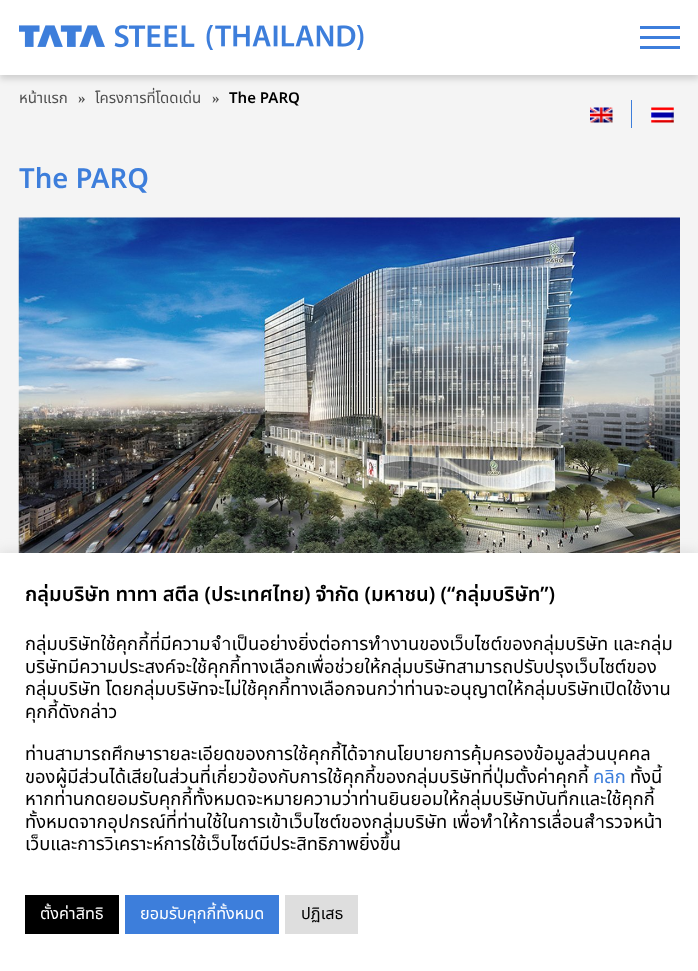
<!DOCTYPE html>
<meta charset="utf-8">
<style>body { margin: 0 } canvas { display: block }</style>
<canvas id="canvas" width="698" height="971"></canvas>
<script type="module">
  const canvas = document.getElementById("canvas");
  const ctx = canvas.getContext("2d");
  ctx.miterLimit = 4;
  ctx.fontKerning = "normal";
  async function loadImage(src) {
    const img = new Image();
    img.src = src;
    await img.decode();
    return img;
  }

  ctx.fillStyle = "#f4f4f4";
  ctx.fillRect(0, 0, 698, 971);
  ctx.fillStyle = "rgba(0, 0, 0, 0.15)";
  ctx.filter = "blur(3px)";
  ctx.beginPath();
  ctx.rect(0, 4, 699, 75);
  ctx.fill();
  ctx.filter = "none";
  ctx.fillStyle = "#ffffff";
  ctx.fillRect(0, 0, 698, 75);
  ctx.drawImage(await loadImage("img1.png"), 19, 25, 345, 25);
  ctx.fillStyle = "#3d7edb";
  ctx.fillRect(640, 36, 40, 3);
  ctx.fillRect(640, 26, 40, 3);
  ctx.fillRect(640, 46, 40, 3);
  ctx.font = "15px Noto Sans Thai";
  ctx.fillStyle = "#4f4f4f";
  ctx.fillText("หน้าแรก", 19, 103);
  ctx.font = "bold 15px Liberation Serif";
  ctx.fillText("»", 78, 103);
  ctx.font = "15px Noto Sans Thai";
  ctx.fillText("โครงการที่โดดเด่น", 95, 103);
  ctx.font = "bold 15px Liberation Serif";
  ctx.fillText("»", 212, 103);
  ctx.font = "600 15px Noto Sans Thai";
  ctx.fillStyle = "#000000";
  ctx.fillText("The PARQ", 229, 103);
  ctx.font = "600 27.5px Noto Sans Thai";
  ctx.fillStyle = "#3d7edb";
  ctx.fillText("The PARQ", 19, 188);
  ctx.drawImage(await loadImage("img2.png"), 18, 217, 662, 336);
  ctx.fillRect(631, 100, 1, 28);
  ctx.drawImage(await loadImage("img3.png"), 590, 107, 23, 16);
  ctx.drawImage(await loadImage("img4.png"), 651, 107, 23, 16);
  ctx.fillStyle = "rgba(172, 171, 171, 0.3)";
  ctx.filter = "blur(6px)";
  ctx.beginPath();
  ctx.rect(0, 551, 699, 419);
  ctx.fill();
  ctx.filter = "none";
  ctx.fillStyle = "#ffffff";
  ctx.fillRect(0, 553, 698, 418);
  ctx.font = "600 20px Noto Sans Thai";
  ctx.fillStyle = "#000000";
  ctx.fillText("กลุ่มบริษัท ทาทา สตีล (ประเทศไทย) จำกัด (มหาชน) (“กลุ่มบริษัท”)", 25, 601);
  ctx.font = "18.35px Noto Sans Thai";
  ctx.fillText("กลุ่มบริษัทใช้คุกกี้ที่มีความจำเป็นอย่างยิ่งต่อการทำงานของเว็บไซต์ของกลุ่มบริษัท และกลุ่ม", 25, 650);
  ctx.fillText("บริษัทมีความประสงค์จะใช้คุกกี้ทางเลือกเพื่อช่วยให้กลุ่มบริษัทสามารถปรับปรุงเว็บไซต์ของ", 25, 673);
  ctx.fillText("กลุ่มบริษัท โดยกลุ่มบริษัทจะไม่ใช้คุกกี้ทางเลือกจนกว่าท่านจะอนุญาตให้กลุ่มบริษัทเปิดใช้งาน", 25, 695);
  ctx.fillText("คุกกี้ดังกล่าว", 25, 718);
  ctx.fillText("ท่านสามารถศึกษารายละเอียดของการใช้คุกกี้ได้จากนโยบายการคุ้มครองข้อมูลส่วนบุคคล", 25, 760);
  ctx.fillText("ของผู้มีส่วนได้เสียในส่วนที่เกี่ยวข้องกับการใช้คุกกี้ของกลุ่มบริษัทที่ปุ่มตั้งค่าคุกกี้", 25, 783);
  ctx.fillStyle = "#3d7edb";
  ctx.fillText("คลิก", 593, 783);
  ctx.fillStyle = "#000000";
  ctx.fillText("ทั้งนี้", 630, 783);
  ctx.fillText("หากท่านกดยอมรับคุกกี้ทั้งหมดจะหมายความว่าท่านยินยอมให้กลุ่มบริษัทบันทึกและใช้คุกกี้", 25, 805);
  ctx.fillText("ทั้งหมดจากอุปกรณ์ที่ท่านใช้ในการเข้าเว็บไซต์ของกลุ่มบริษัท เพื่อทำให้การเลื่อนสำรวจหน้า", 25, 828);
  ctx.fillText("เว็บและการวิเคราะห์การใช้เว็บไซต์มีประสิทธิภาพยิ่งขึ้น", 25, 850);
  ctx.fillRect(25, 895, 94, 39);
  ctx.font = "16.25px Noto Sans Thai";
  ctx.fillStyle = "#ffffff";
  ctx.fillText("ตั้งค่าสิทธิ", 40, 919);
  ctx.fillStyle = "#3d7edb";
  ctx.fillRect(125, 895, 154, 39);
  ctx.fillStyle = "#ffffff";
  ctx.fillText("ยอมรับคุกกี้ทั้งหมด", 140, 919);
  ctx.fillStyle = "#dedede";
  ctx.fillRect(285, 895, 73, 39);
  ctx.fillStyle = "#000000";
  ctx.fillText("ปฏิเสธ", 301, 919);
</script>
